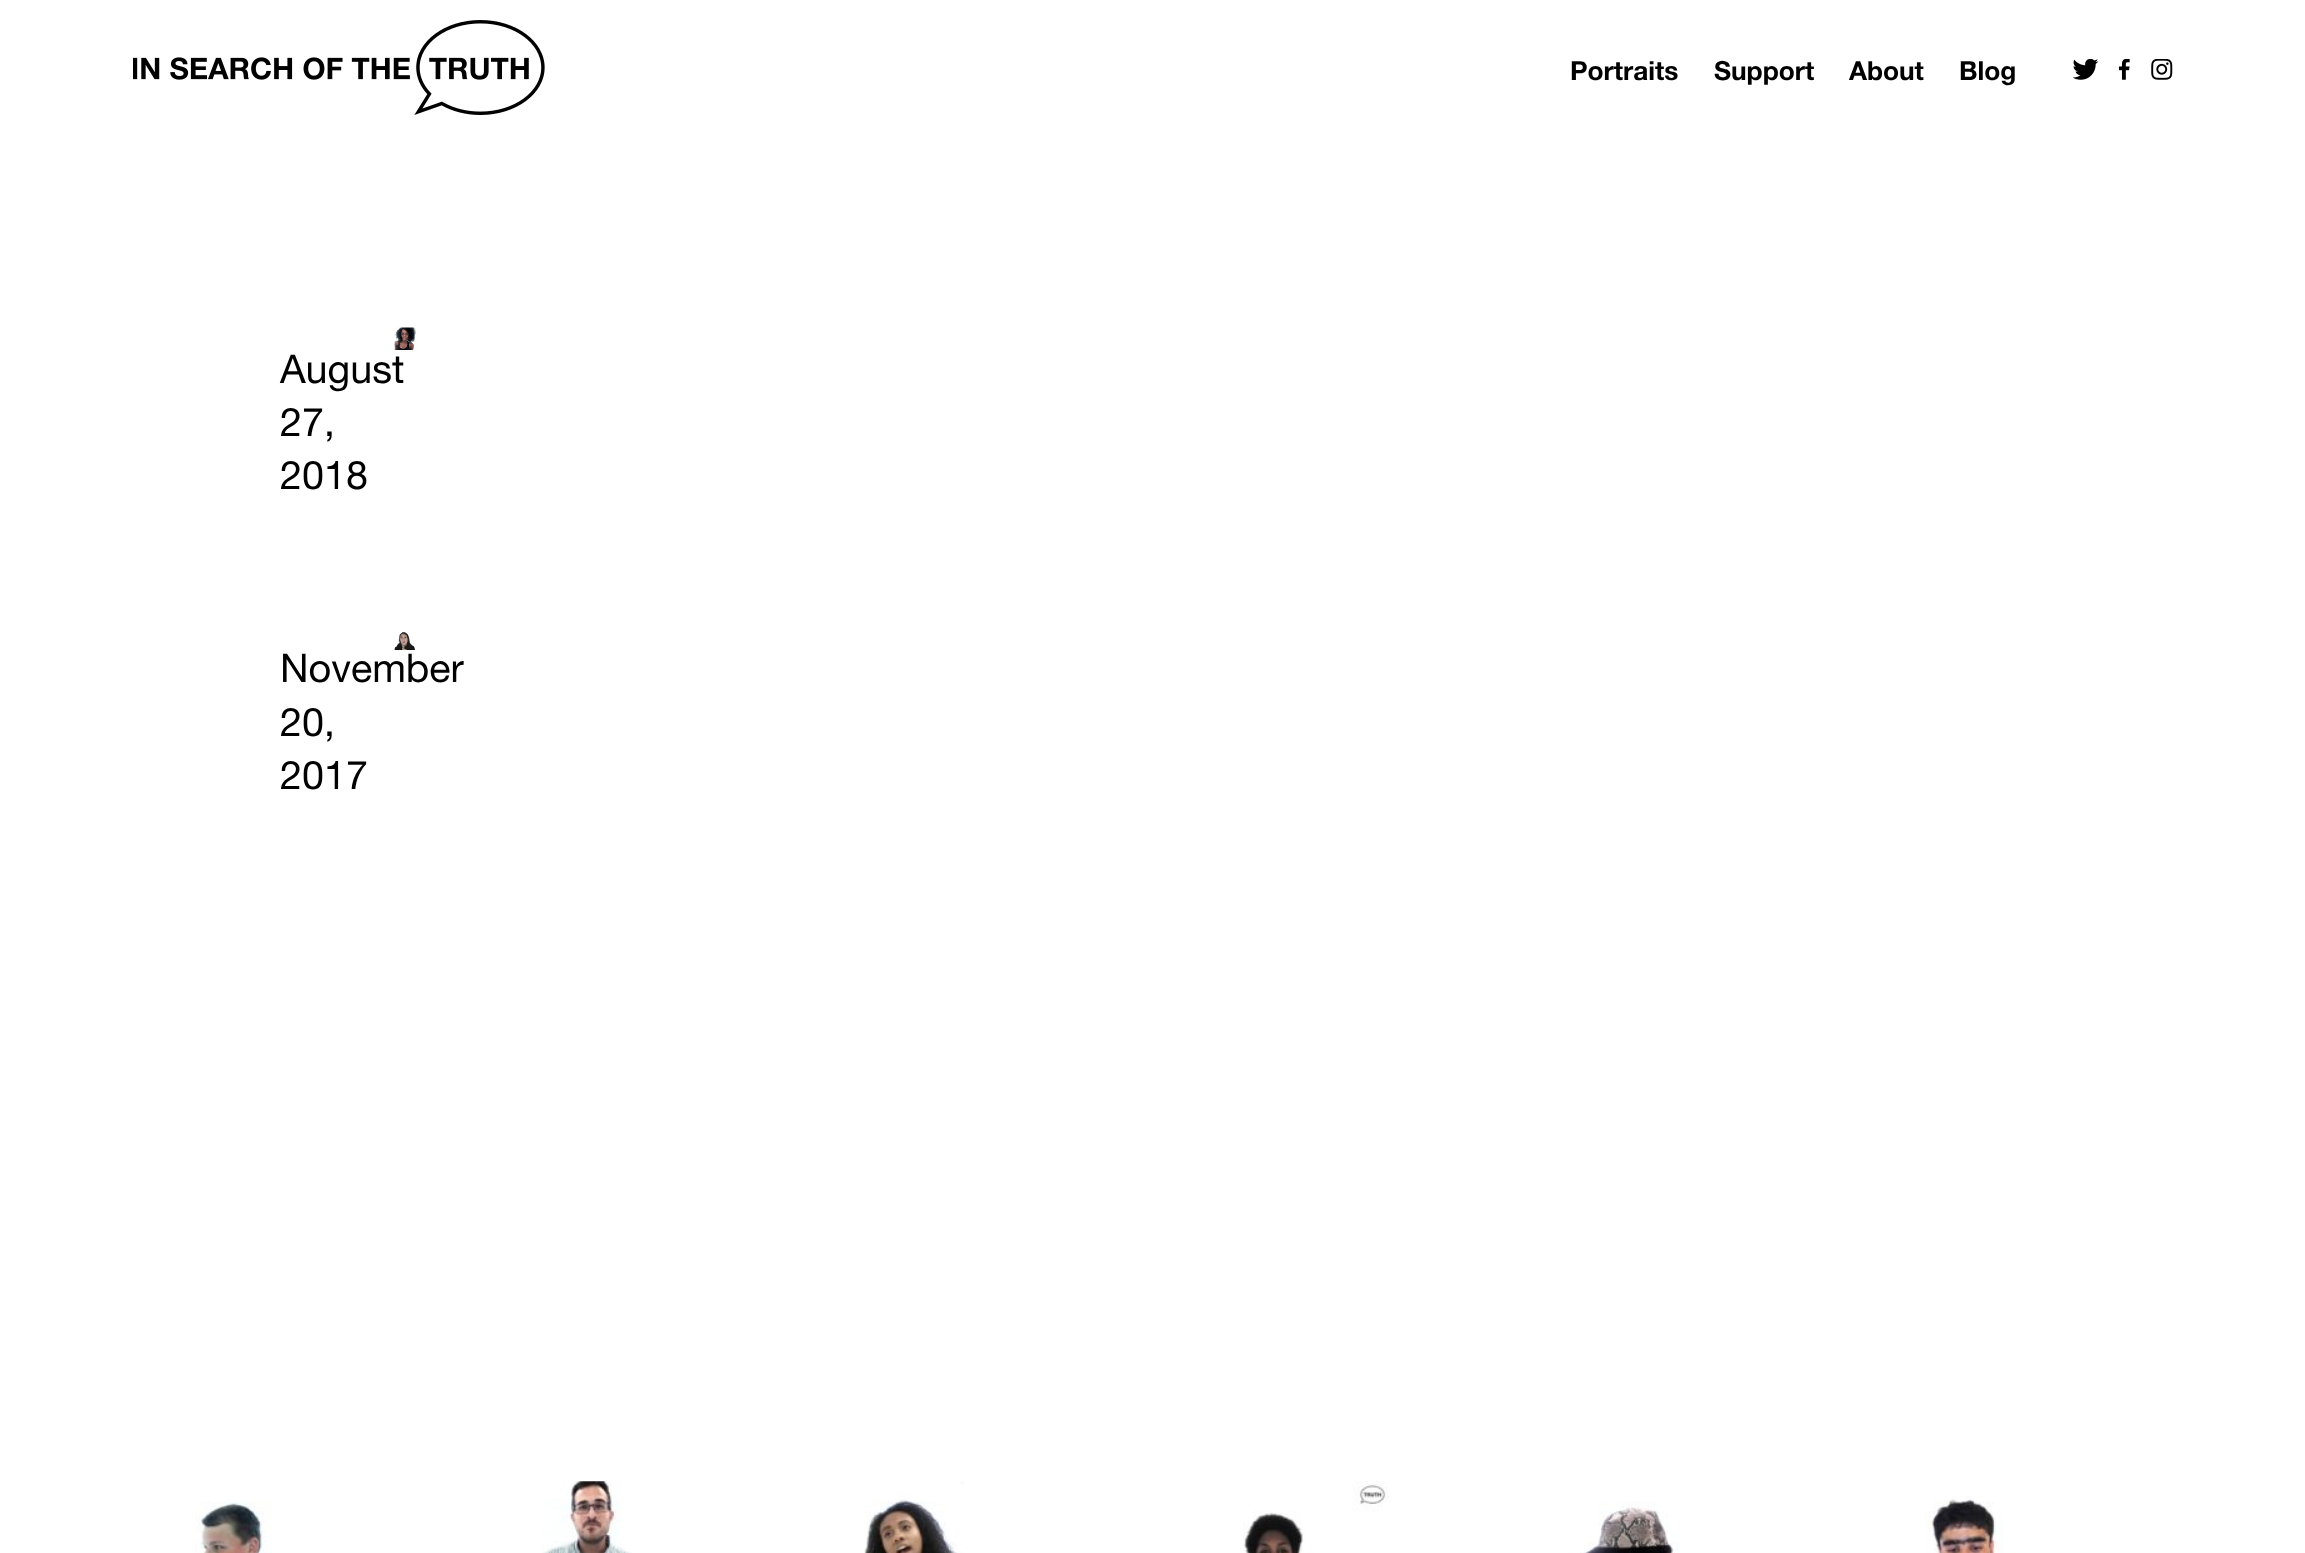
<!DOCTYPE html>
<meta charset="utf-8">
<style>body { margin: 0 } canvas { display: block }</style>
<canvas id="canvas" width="2305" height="1553"></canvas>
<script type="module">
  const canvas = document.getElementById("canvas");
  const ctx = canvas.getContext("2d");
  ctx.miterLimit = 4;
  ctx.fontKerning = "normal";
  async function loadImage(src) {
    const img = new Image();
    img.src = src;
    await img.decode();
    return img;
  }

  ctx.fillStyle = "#ffffff";
  ctx.fillRect(0, 0, 2305, 1553);
  ctx.drawImage(await loadImage("img1.png"), 133, 20, 412, 95);
  ctx.font = "bold 26.25px Helvetica Neue";
  ctx.fillStyle = "#000000";
  ctx.fillText("Portraits", 1570, 80);
  ctx.fillText("Support", 1714, 80);
  ctx.fillText("About", 1849, 80);
  ctx.fillText("Blog", 1959, 80);
  ctx.drawImage(await loadImage("img2.png"), 2073, 59, 26, 21);
  ctx.drawImage(await loadImage("img3.png"), 2119, 59, 11, 21);
  ctx.drawImage(await loadImage("img4.png"), 2151, 59, 22, 21);
  ctx.drawImage(await loadImage("img5.png"), 394, 327, 23, 23);
  ctx.font = "39.5px Helvetica Neue";
  ctx.fillText("August", 280, 383);
  ctx.fillText("27,", 280, 436);
  ctx.fillText("2018", 280, 489);
  ctx.drawImage(await loadImage("img6.png"), 394, 632, 22, 18);
  ctx.fillText("November", 280, 682);
  ctx.fillText("20,", 280, 736);
  ctx.fillText("2017", 280, 789);
  ctx.drawImage(await loadImage("img7.png"), 195, 1501, 76, 52);
  ctx.drawImage(await loadImage("img8.png"), 542, 1481, 90, 72);
  ctx.drawImage(await loadImage("img9.png"), 864, 1481, 100, 72);
  ctx.drawImage(await loadImage("img10.png"), 1243, 1481, 146, 72);
  ctx.drawImage(await loadImage("img11.png"), 1580, 1501, 99, 52);
  ctx.drawImage(await loadImage("img12.png"), 1924, 1496, 80, 57);
</script>
